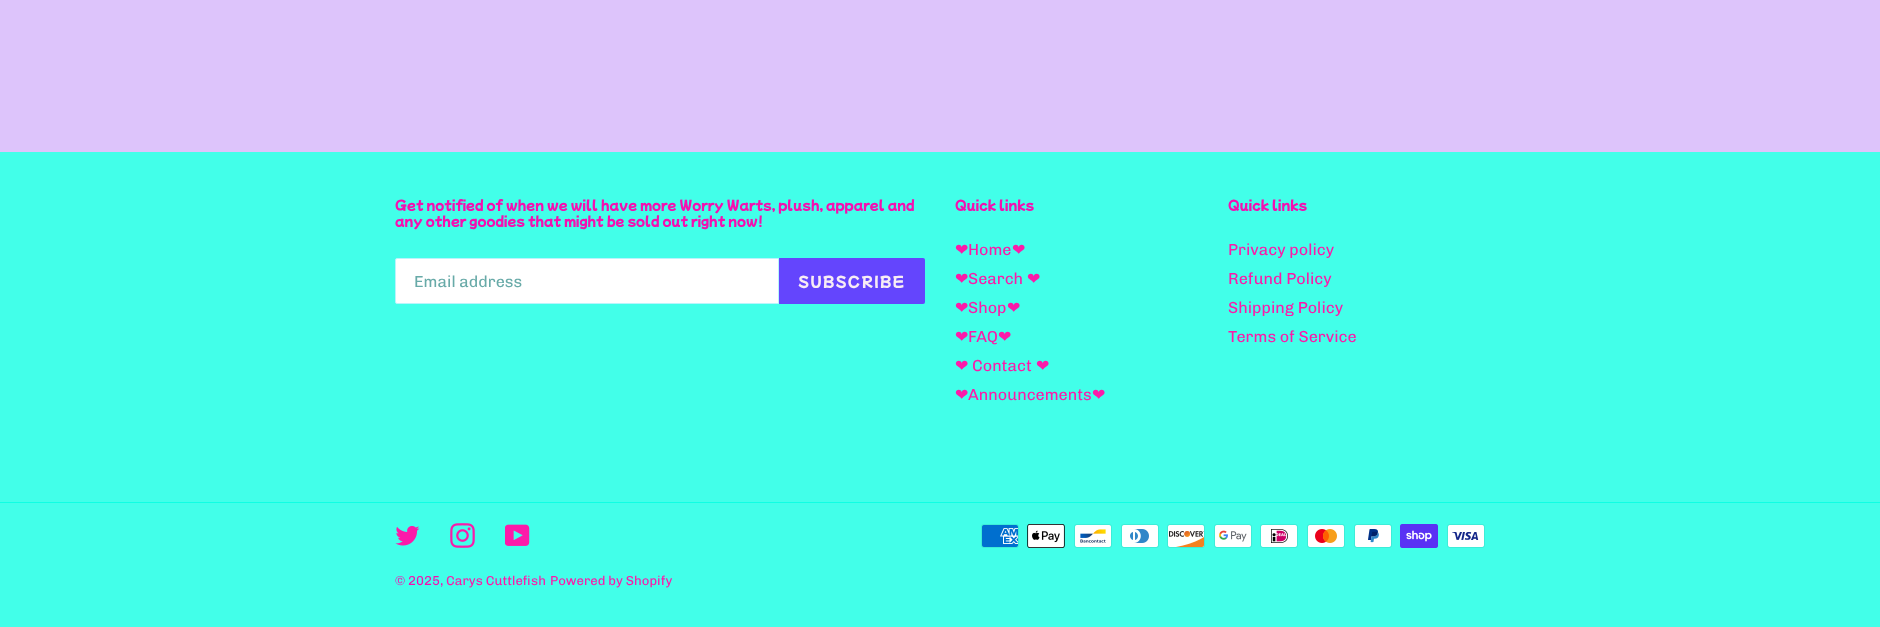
<!DOCTYPE html>
<meta charset="utf-8">
<style>body { margin: 0 } canvas { display: block }</style>
<canvas id="canvas" width="1880" height="627"></canvas>
<script type="module">
  const canvas = document.getElementById("canvas");
  const ctx = canvas.getContext("2d");
  ctx.miterLimit = 4;
  ctx.fontKerning = "normal";
  async function loadImage(src) {
    const img = new Image();
    img.src = src;
    await img.decode();
    return img;
  }

  ctx.fillStyle = "#ddc4fb";
  ctx.fillRect(0, 0, 1880, 627);
  ctx.fillStyle = "#42ffe9";
  ctx.fillRect(0, 152, 1880, 475);
  ctx.font = "13px Mochiy Pop P One";
  ctx.fillStyle = "#f50fb0";
  ctx.fillText("Get notified of when we will have more Worry Warts, plush, apparel and", 395, 210);
  ctx.fillText("any other goodies that might be sold out right now!", 395, 226);
  ctx.fillStyle = "#ffffff";
  ctx.beginPath();
  ctx.roundRect(395.5, 258.5, 383, 45, [1.5, 0, 0, 1.5]);
  ctx.fill();
  ctx.strokeStyle = "#b9f4fc";
  ctx.stroke();
  ctx.font = "16px Chivo";
  ctx.fillStyle = "#68aaa8";
  ctx.fillText("Email address", 414, 287);
  ctx.fillStyle = "#6445fd";
  ctx.beginPath();
  ctx.roundRect(779, 258, 146, 46, [0, 2, 2, 0]);
  ctx.fill();
  ctx.letterSpacing = "1.1px";
  ctx.font = "14px Mochiy Pop P One";
  ctx.fillStyle = "#f7ecf5";
  ctx.fillText("SUBSCRIBE", 798, 287);
  ctx.letterSpacing = "0px";
  ctx.font = "13px Mochiy Pop P One";
  ctx.fillStyle = "#f50fb0";
  ctx.fillText("Quick links", 955, 210);
  ctx.font = "16px DejaVu Sans";
  ctx.fillStyle = "#fc1aa9";
  ctx.fillText("❤", 955, 255);
  ctx.font = "16px Chivo";
  ctx.fillText("Home", 968, 255);
  ctx.font = "16px DejaVu Sans";
  ctx.fillText("❤", 1012, 255);
  ctx.fillText("❤", 955, 284);
  ctx.font = "16px Chivo";
  ctx.fillText("Search", 968, 284);
  ctx.font = "16px DejaVu Sans";
  ctx.fillText("❤", 1027, 284);
  ctx.fillText("❤", 955, 313);
  ctx.font = "16px Chivo";
  ctx.fillText("Shop", 968, 313);
  ctx.font = "16px DejaVu Sans";
  ctx.fillText("❤", 1007, 313);
  ctx.fillText("❤", 955, 342);
  ctx.font = "16px Chivo";
  ctx.fillText("FAQ", 968, 342);
  ctx.font = "16px DejaVu Sans";
  ctx.fillText("❤", 998, 342);
  ctx.fillText("❤", 955, 371);
  ctx.font = "16px Chivo";
  ctx.fillText("Contact", 972, 371);
  ctx.font = "16px DejaVu Sans";
  ctx.fillText("❤", 1036, 371);
  ctx.fillText("❤", 955, 400);
  ctx.font = "16px Chivo";
  ctx.fillText("Announcements", 968, 400);
  ctx.font = "16px DejaVu Sans";
  ctx.fillText("❤", 1092, 400);
  ctx.font = "13px Mochiy Pop P One";
  ctx.fillStyle = "#f50fb0";
  ctx.fillText("Quick links", 1228, 210);
  ctx.font = "16px Chivo";
  ctx.fillStyle = "#fc1aa9";
  ctx.fillText("Privacy policy", 1228, 255);
  ctx.fillText("Refund Policy", 1228, 284);
  ctx.fillText("Shipping Policy", 1228, 313);
  ctx.fillText("Terms of Service", 1228, 342);
  ctx.fillStyle = "#0fffe3";
  ctx.fillRect(0, 502, 1880, 1);
  ctx.drawImage(await loadImage("img1.png"), 395, 526, 25, 20);
  ctx.drawImage(await loadImage("img2.png"), 450, 523, 25, 25);
  ctx.drawImage(await loadImage("img3.png"), 505, 524, 25, 22);
  ctx.drawImage(await loadImage("img4.png"), 981, 524, 38, 24);
  ctx.drawImage(await loadImage("img5.png"), 1027, 524, 38, 24);
  ctx.drawImage(await loadImage("img6.png"), 1074, 524, 38, 24);
  ctx.drawImage(await loadImage("img7.png"), 1121, 524, 38, 24);
  ctx.drawImage(await loadImage("img8.png"), 1167, 524, 38, 24);
  ctx.drawImage(await loadImage("img9.png"), 1214, 524, 38, 24);
  ctx.drawImage(await loadImage("img10.png"), 1260, 524, 38, 24);
  ctx.drawImage(await loadImage("img11.png"), 1307, 524, 38, 24);
  ctx.drawImage(await loadImage("img12.png"), 1354, 524, 38, 24);
  ctx.drawImage(await loadImage("img13.png"), 1400, 524, 38, 24);
  ctx.drawImage(await loadImage("img14.png"), 1447, 524, 38, 24);
  ctx.font = "13px Chivo";
  ctx.fillStyle = "#f50fb0";
  ctx.fillText("© 2025,", 395, 585);
  ctx.fillStyle = "#fc1aa9";
  ctx.fillText("Carys Cuttlefish", 446, 585);
  ctx.fillText("Powered by Shopify", 550, 585);
</script>
